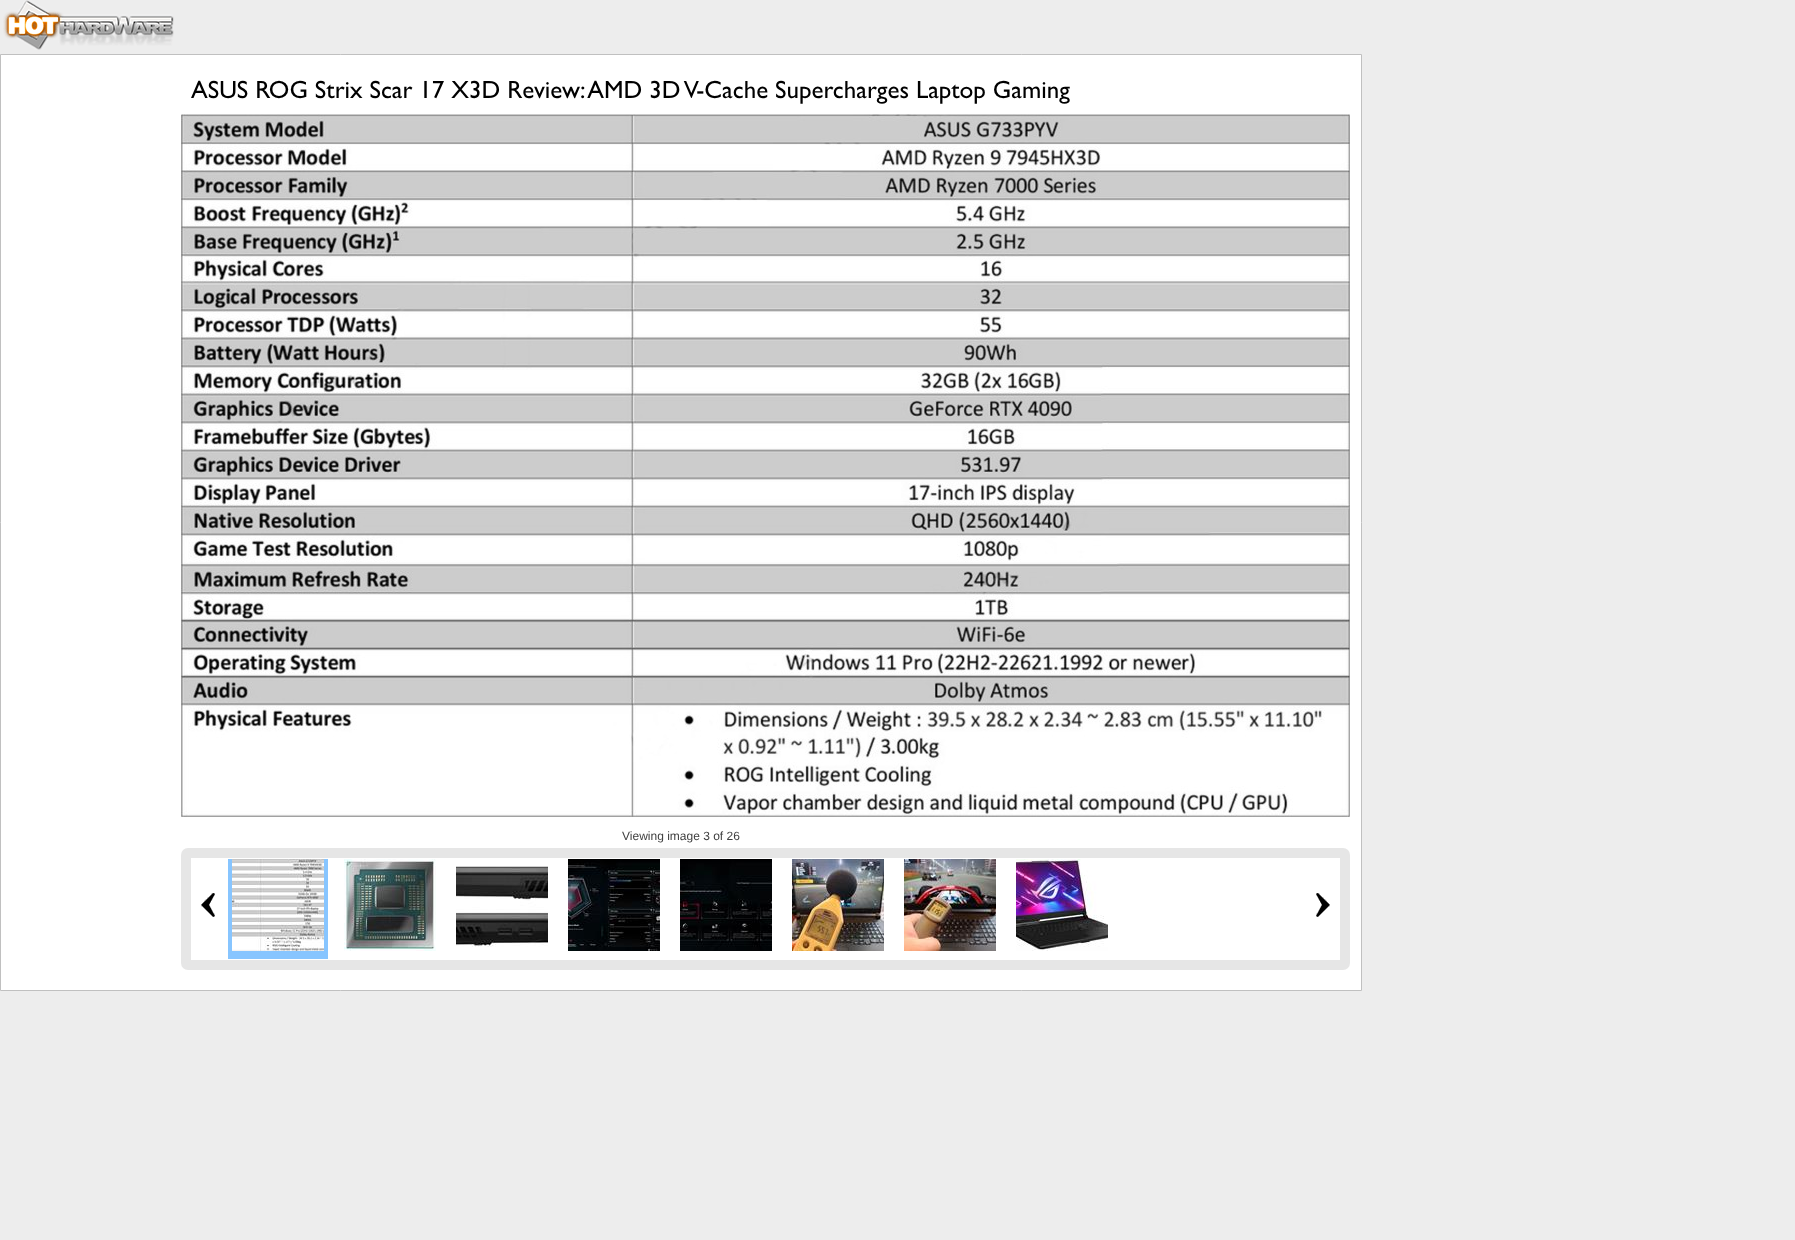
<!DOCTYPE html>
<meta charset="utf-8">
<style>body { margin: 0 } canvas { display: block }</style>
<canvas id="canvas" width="1795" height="1240"></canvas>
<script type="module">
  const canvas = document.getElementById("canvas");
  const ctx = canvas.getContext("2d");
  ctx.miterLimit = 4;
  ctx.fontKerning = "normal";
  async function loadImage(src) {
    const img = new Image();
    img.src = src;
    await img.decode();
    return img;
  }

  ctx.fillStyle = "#ededed";
  ctx.fillRect(0, 0, 1795, 1240);
  ctx.drawImage(await loadImage("img1.png"), 3, 0, 171, 50);
  ctx.fillStyle = "#ffffff";
  ctx.beginPath();
  ctx.rect(0.5, 54.5, 1361, 936);
  ctx.fill();
  ctx.strokeStyle = "#c0c0c0";
  ctx.stroke();
  ctx.font = "25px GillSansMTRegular";
  ctx.fillStyle = "#000000";
  ctx.fillText("ASUS ROG Strix Scar 17 X3D Review: AMD 3D V-Cache Supercharges Laptop Gaming", 191, 98);
  ctx.drawImage(await loadImage("img2.png"), 181, 114, 1169, 703);
  ctx.font = "12px Liberation Sans";
  ctx.fillStyle = "#3f3f3f";
  ctx.fillText("Viewing image 3 of 26", 622, 840);
  ctx.fillStyle = "#e6e6e6";
  ctx.beginPath();
  ctx.roundRect(181, 848, 1169, 122, 7);
  ctx.fill();
  ctx.fillStyle = "#ffffff";
  ctx.fillRect(191, 858, 1149, 102);
  ctx.drawImage(await loadImage("img3.png"), 201, 893, 14, 24);
  ctx.fillStyle = "#87c5ff";
  ctx.fillRect(228, 859, 100, 100);
  ctx.drawImage(await loadImage("img4.png"), 232, 859, 92, 92);
  ctx.drawImage(await loadImage("img5.png"), 344, 859, 92, 92);
  ctx.drawImage(await loadImage("img6.png"), 456, 866, 92, 81);
  ctx.drawImage(await loadImage("img7.png"), 568, 859, 92, 92);
  ctx.drawImage(await loadImage("img8.png"), 680, 859, 92, 92);
  ctx.drawImage(await loadImage("img9.png"), 792, 859, 92, 92);
  ctx.drawImage(await loadImage("img10.png"), 904, 859, 92, 92);
  ctx.drawImage(await loadImage("img11.png"), 1016, 859, 92, 92);
  ctx.drawImage(await loadImage("img12.png"), 1316, 893, 14, 24);
</script>
